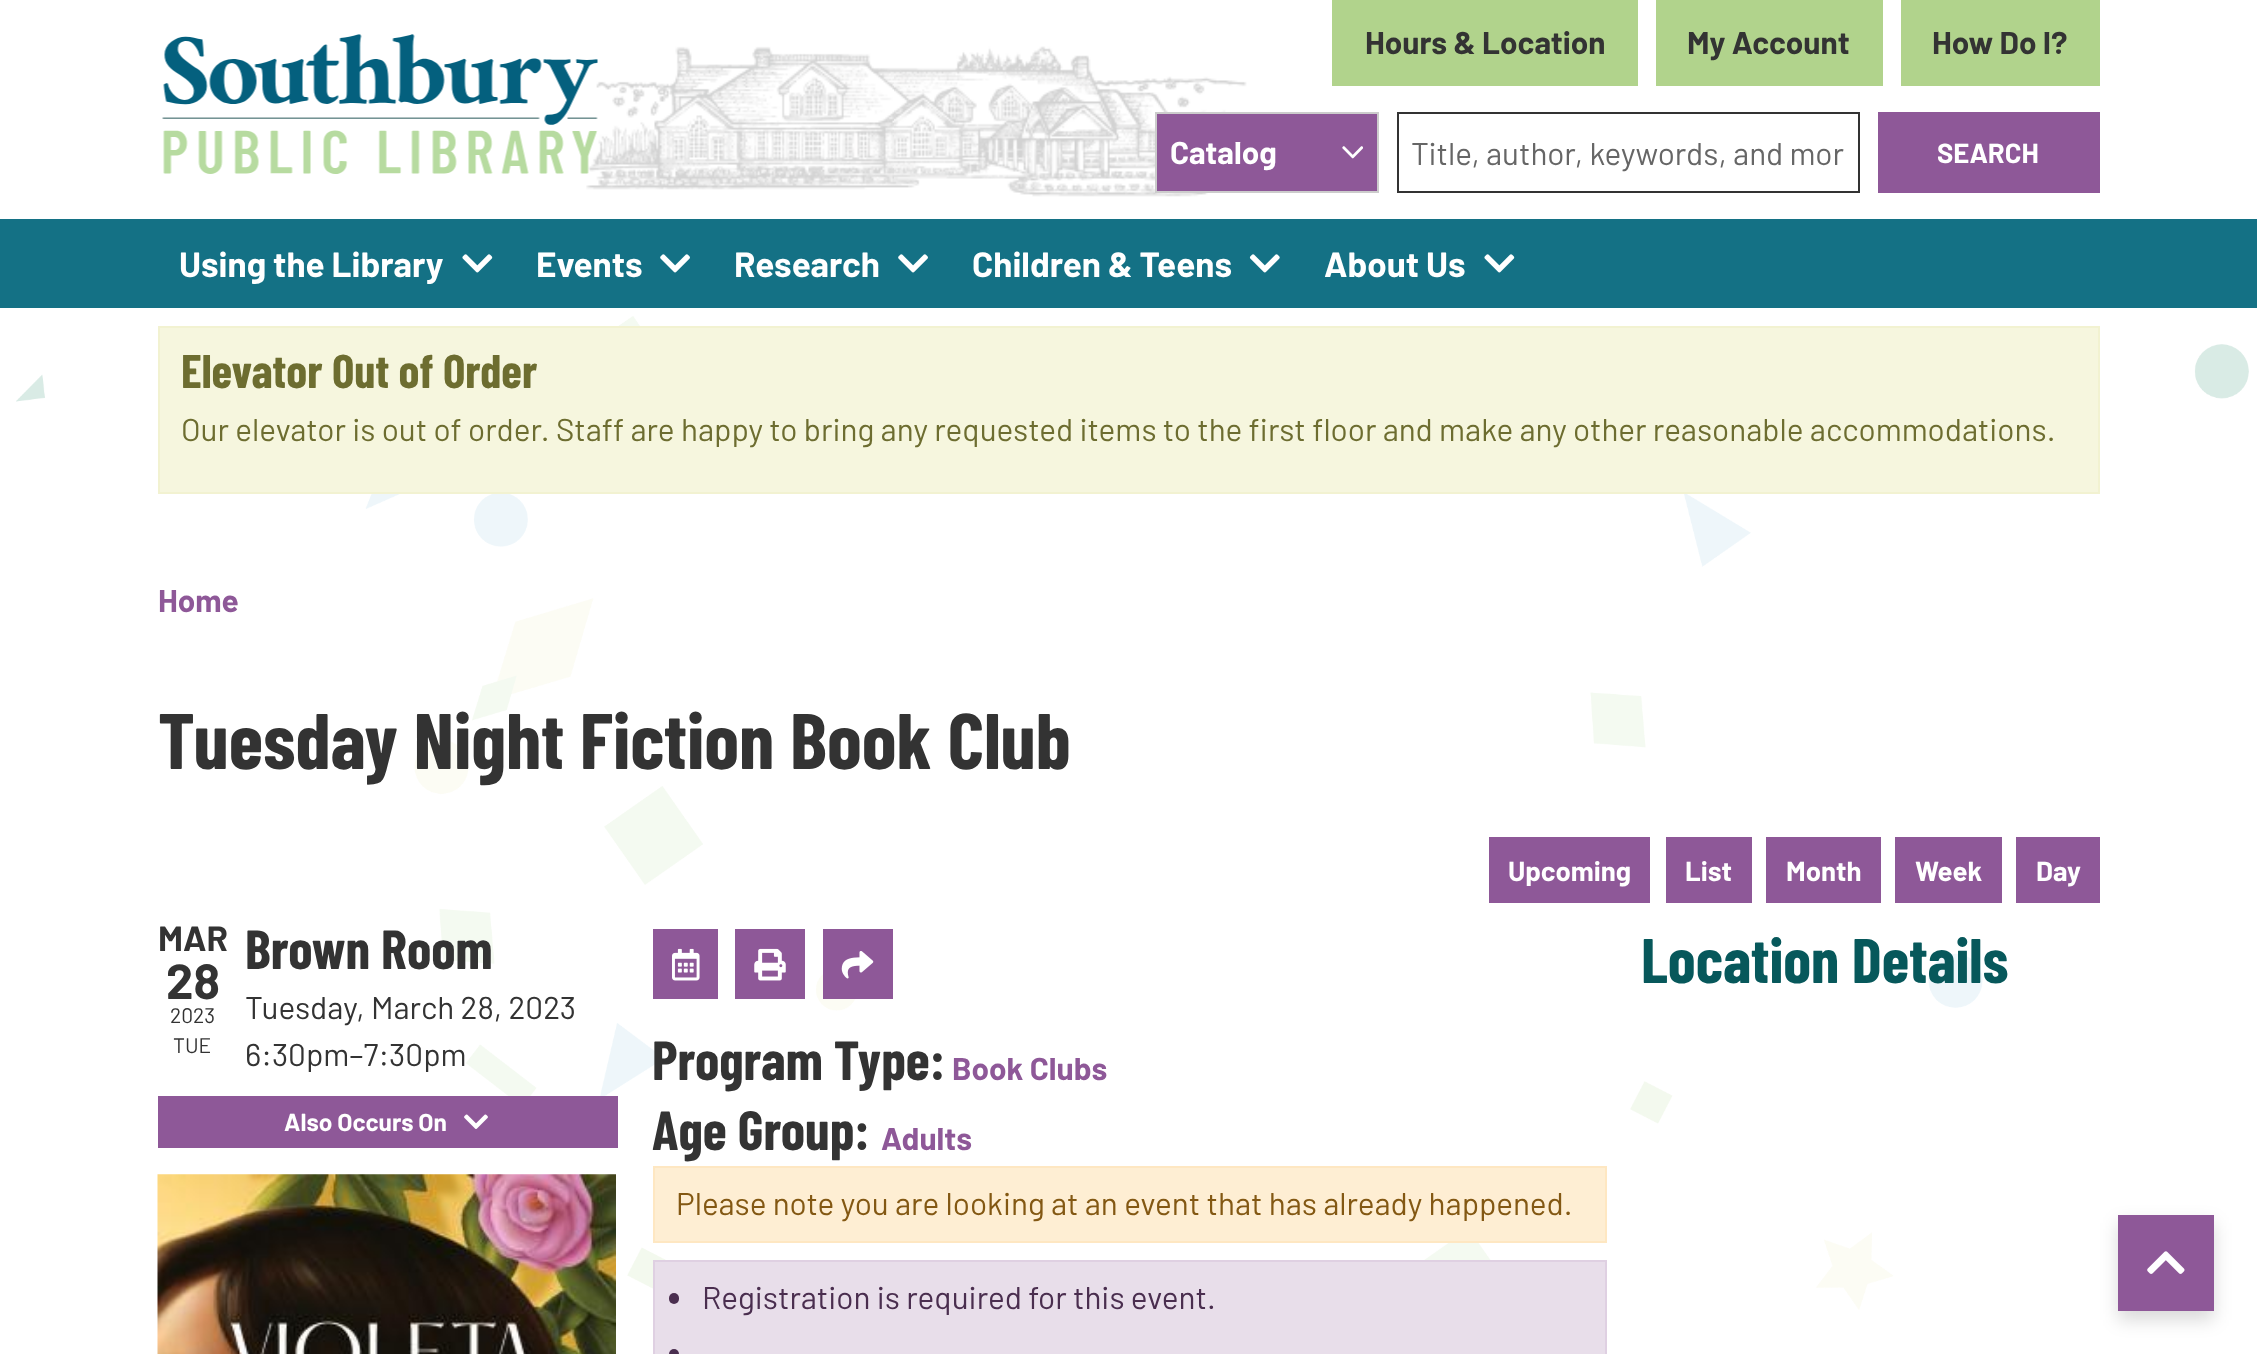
<!DOCTYPE html>
<meta charset="utf-8">
<style>body { margin: 0 } canvas { display: block }</style>
<canvas id="canvas" width="2257" height="1354"></canvas>
<script type="module">
  const canvas = document.getElementById("canvas");
  const ctx = canvas.getContext("2d");
  ctx.miterLimit = 4;
  ctx.fontKerning = "normal";
  async function loadImage(src) {
    const img = new Image();
    img.src = src;
    await img.decode();
    return img;
  }

  ctx.fillStyle = "#ffffff";
  ctx.fillRect(0, 0, 2257, 1354);
  ctx.drawImage(await loadImage("img1.png"), 586, 46, 675, 151);
  ctx.drawImage(await loadImage("img2.png"), 162, 34, 436, 140);
  ctx.fillStyle = "#b1d38c";
  ctx.fillRect(1332, 0, 306, 86);
  ctx.font = "bold 31.5px Barlow";
  ctx.fillStyle = "#333333";
  ctx.fillText("Hours & Location", 1365, 54);
  ctx.fillStyle = "#b1d38c";
  ctx.fillRect(1656, 0, 227, 86);
  ctx.fillStyle = "#333333";
  ctx.fillText("My Account", 1687, 54);
  ctx.fillStyle = "#b1d38c";
  ctx.fillRect(1901, 0, 199, 86);
  ctx.fillStyle = "#333333";
  ctx.fillText("How Do I?", 1932, 54);
  ctx.fillStyle = "#8e5898";
  ctx.fillRect(1157, 114, 220, 77);
  ctx.drawImage(await loadImage("img3.png"), 1342, 146, 21, 13);
  ctx.strokeStyle = "#cccccc";
  ctx.lineWidth = 2;
  ctx.strokeRect(1156, 113, 222, 79);
  ctx.fillStyle = "#ffffff";
  ctx.fillText("Catalog", 1170, 164);
  ctx.strokeStyle = "#333333";
  ctx.strokeRect(1398, 113, 461, 79);
  ctx.font = "31.5px Barlow";
  ctx.fillStyle = "#666666";
  ctx.fillText("Title, author, keywords, and mor", 1411, 165);
  ctx.fillStyle = "#8e5898";
  ctx.fillRect(1878, 112, 222, 81);
  ctx.font = "bold 27.5px Barlow";
  ctx.fillStyle = "#ffffff";
  ctx.fillText("SEARCH", 1937, 163);
  ctx.fillStyle = "#147185";
  ctx.fillRect(0, 219, 2257, 89);
  ctx.font = "bold 35px Barlow";
  ctx.fillStyle = "#ffffff";
  ctx.fillText("Using the Library", 179, 277);
  ctx.drawImage(await loadImage("img4.png"), 462, 254, 31, 19);
  ctx.fillText("Events", 536, 277);
  ctx.drawImage(await loadImage("img5.png"), 660, 254, 30, 19);
  ctx.fillText("Research", 734, 277);
  ctx.drawImage(await loadImage("img5.png"), 898, 254, 30, 19);
  ctx.fillText("Children & Teens", 972, 277);
  ctx.drawImage(await loadImage("img6.png"), 1249, 254, 31, 19);
  ctx.fillText("About Us", 1324, 277);
  ctx.drawImage(await loadImage("img4.png"), 1484, 254, 31, 19);
  ctx.drawImage(await loadImage("img7.png"), 16, 316, 2233, 994);
  ctx.fillStyle = "#f6f6de";
  ctx.beginPath();
  ctx.rect(159, 327, 1940, 166);
  ctx.fill();
  ctx.strokeStyle = "#f2f2d1";
  ctx.stroke();
  ctx.font = "bold 47.25px Barlow Condensed";
  ctx.fillStyle = "#6d6d30";
  ctx.fillText("Elevator Out of Order", 181, 388);
  ctx.font = "31.5px Barlow";
  ctx.fillText("Our elevator is out of order. Staff are happy to bring any requested items to the first floor and make any other reasonable accommodations.", 181, 441);
  ctx.font = "bold 31.5px Barlow";
  ctx.fillStyle = "#8e5898";
  ctx.fillText("Home", 158, 612);
  ctx.font = "bold 78.75px Barlow Condensed";
  ctx.fillStyle = "#333333";
  ctx.fillText("Tuesday Night Fiction Book Club", 158, 769);
  ctx.fillStyle = "#8e5898";
  ctx.fillRect(1489, 837, 161, 66);
  ctx.font = "bold 27.5px Barlow";
  ctx.fillStyle = "#ffffff";
  ctx.fillText("Upcoming", 1508, 881);
  ctx.fillStyle = "#8e5898";
  ctx.fillRect(1666, 837, 86, 66);
  ctx.fillStyle = "#ffffff";
  ctx.fillText("List", 1685, 881);
  ctx.fillStyle = "#8e5898";
  ctx.fillRect(1766, 837, 115, 66);
  ctx.fillStyle = "#ffffff";
  ctx.fillText("Month", 1786, 881);
  ctx.fillStyle = "#8e5898";
  ctx.fillRect(1895, 837, 107, 66);
  ctx.fillStyle = "#ffffff";
  ctx.fillText("Week", 1915, 881);
  ctx.fillStyle = "#8e5898";
  ctx.fillRect(2016, 837, 84, 66);
  ctx.fillStyle = "#ffffff";
  ctx.fillText("Day", 2036, 881);
  ctx.font = "bold 35px Barlow";
  ctx.fillStyle = "#333333";
  ctx.fillText("MAR", 158, 951);
  ctx.font = "bold 49px Barlow";
  ctx.fillText("28", 166, 999);
  ctx.font = "21px Barlow";
  ctx.fillText("2023", 170, 1023);
  ctx.fillText("TUE", 173, 1053);
  ctx.font = "bold 55px Barlow Condensed";
  ctx.fillText("Brown Room", 245, 969);
  ctx.font = "31.5px Barlow";
  ctx.fillText("Tuesday, March 28, 2023", 245, 1019);
  ctx.fillText("6:30pm–7:30pm", 245, 1066);
  ctx.fillStyle = "#8e5898";
  ctx.fillRect(158, 1096, 460, 52);
  ctx.font = "bold 24.5px Barlow";
  ctx.fillStyle = "#ffffff";
  ctx.fillText("Also Occurs On", 284, 1131);
  ctx.drawImage(await loadImage("img8.png"), 464, 1114, 24, 15);
  ctx.drawImage(await loadImage("img9.png"), 157, 1174, 459, 180);
  ctx.font = "bold 63px Barlow Condensed";
  ctx.fillStyle = "#07585b";
  ctx.fillText("Location Details", 1641, 983);
  ctx.fillStyle = "#8e5898";
  ctx.fillRect(653, 929, 65, 70);
  ctx.drawImage(await loadImage("img10.png"), 672, 948, 28, 33);
  ctx.fillRect(735, 929, 70, 70);
  ctx.drawImage(await loadImage("img11.png"), 754, 948, 32, 33);
  ctx.fillRect(823, 929, 70, 70);
  ctx.drawImage(await loadImage("img12.png"), 841, 951, 33, 28);
  ctx.font = "bold 55px Barlow Condensed";
  ctx.fillStyle = "#333333";
  ctx.fillText("Program Type:", 652, 1080);
  ctx.font = "bold 31.5px Barlow";
  ctx.fillStyle = "#8e5898";
  ctx.fillText("Book Clubs", 952, 1080);
  ctx.font = "bold 55px Barlow Condensed";
  ctx.fillStyle = "#333333";
  ctx.fillText("Age Group:", 652, 1150);
  ctx.font = "bold 31.5px Barlow";
  ctx.fillStyle = "#8e5898";
  ctx.fillText("Adults", 881, 1150);
  ctx.fillStyle = "#feeed3";
  ctx.beginPath();
  ctx.rect(654, 1167, 952, 75);
  ctx.fill();
  ctx.strokeStyle = "#fee7c2";
  ctx.stroke();
  ctx.font = "31.5px Barlow";
  ctx.fillStyle = "#835813";
  ctx.fillText("Please note you are looking at an event that has already happened.", 676, 1215);
  ctx.fillStyle = "#e8deea";
  ctx.beginPath();
  ctx.rect(654, 1261, 952, 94);
  ctx.fill();
  ctx.strokeStyle = "#dfd0e2";
  ctx.stroke();
  ctx.fillStyle = "#4a2e4f";
  ctx.beginPath();
  ctx.roundRect(669, 1293, 10, 11, 5);
  ctx.fill();
  ctx.fillText("Registration is required for this event.", 702, 1309);
  ctx.beginPath();
  ctx.arc(674, 1354, 5, 0, Math.PI * 2);
  ctx.fill();
  ctx.fillStyle = "rgba(0, 0, 0, 0.15)";
  ctx.filter = "blur(9px)";
  ctx.beginPath();
  ctx.rect(2118, 1223, 96, 97);
  ctx.fill();
  ctx.filter = "none";
  ctx.fillStyle = "#8e5898";
  ctx.fillRect(2118, 1215, 96, 96);
  ctx.drawImage(await loadImage("img13.png"), 2147, 1251, 38, 23);
</script>
